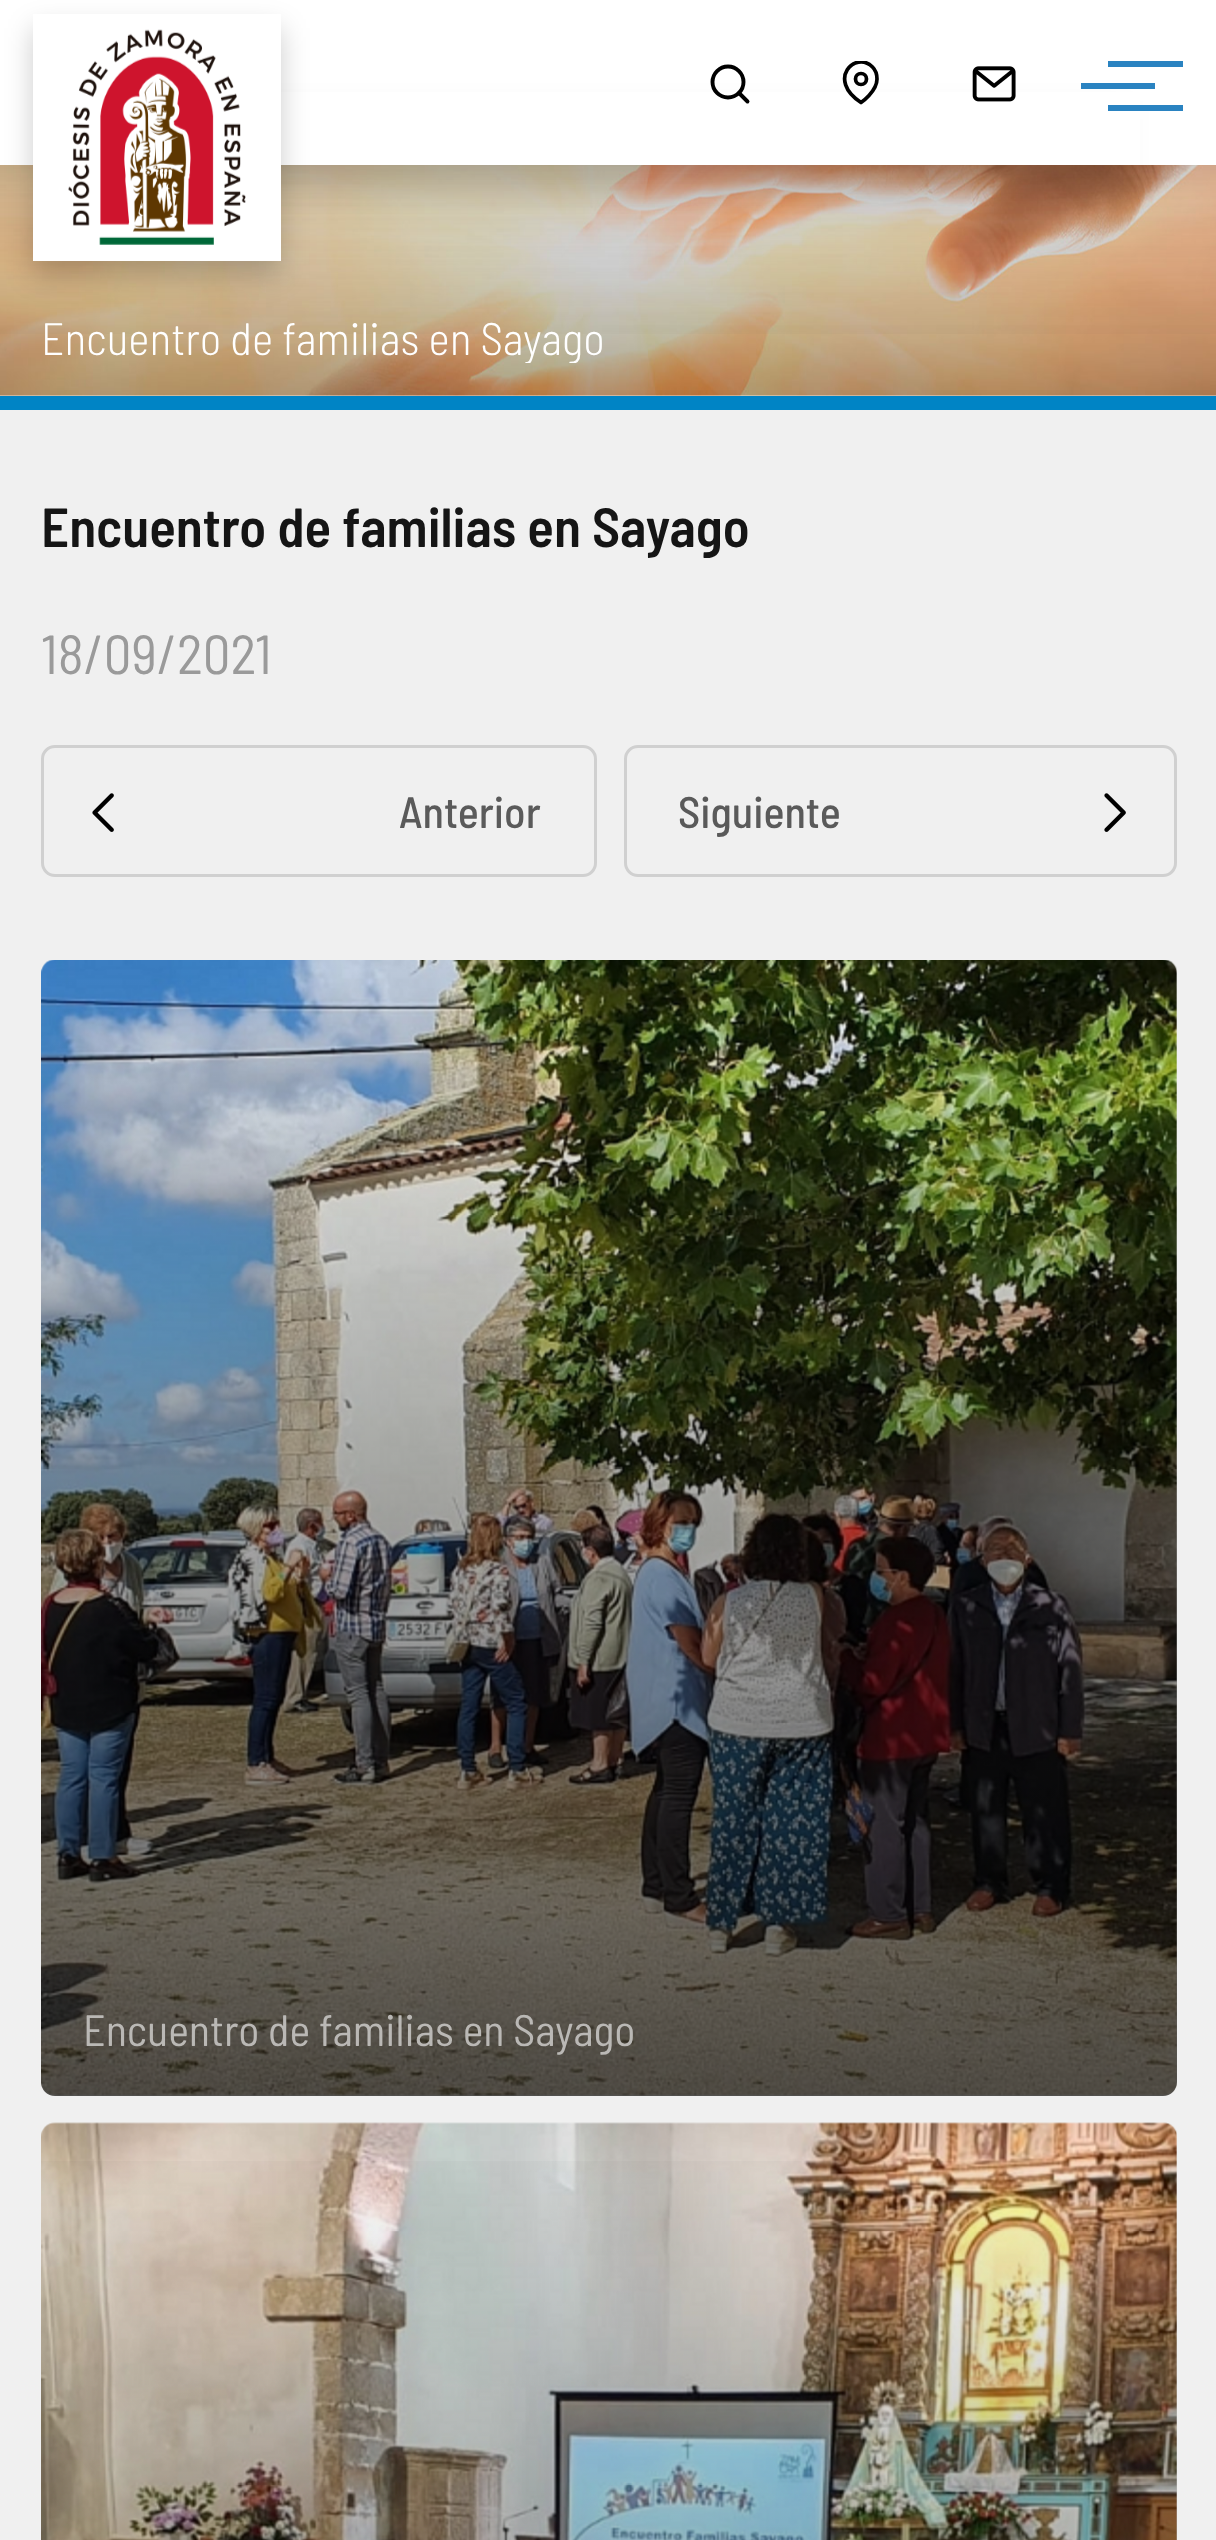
<!DOCTYPE html>
<meta charset="utf-8">
<style>body { margin: 0 } canvas { display: block }</style>
<canvas id="canvas" width="1216" height="2540"></canvas>
<script type="module">
  const canvas = document.getElementById("canvas");
  const ctx = canvas.getContext("2d");
  ctx.miterLimit = 4;
  ctx.fontKerning = "normal";
  async function loadImage(src) {
    const img = new Image();
    img.src = src;
    await img.decode();
    return img;
  }
  let gradient;

  ctx.fillStyle = "#ffffff";
  ctx.fillRect(0, 0, 1216, 2540);
  ctx.drawImage(await loadImage("img3.png"), 0, 165, 1216, 231);
  ctx.drawImage(await loadImage("img4.png"), 0, 165, 1216, 169);
  ctx.fillStyle = "rgba(0, 0, 0, 0.1)";
  ctx.filter = "blur(14px)";
  ctx.beginPath();
  ctx.rect(96, 110, 1026, 83);
  ctx.fill();
  ctx.filter = "none";
  ctx.fillStyle = "#ffffff";
  ctx.fillRect(78, 92, 1062, 73);
  ctx.fillStyle = "rgba(0, 0, 0, 0.2)";
  ctx.filter = "blur(14px)";
  ctx.beginPath();
  ctx.rect(33, 28, 248, 247);
  ctx.fill();
  ctx.filter = "none";
  ctx.fillStyle = "#ffffff";
  ctx.fillRect(33, 14, 248, 247);
  ctx.drawImage(await loadImage("img1.png"), 68, 29, 178, 216);
  ctx.beginPath();
  ctx.arc(728, 82, 15.5, 0, Math.PI * 2);
  ctx.strokeStyle = "#000000";
  ctx.lineWidth = 3.9;
  ctx.stroke();
  ctx.beginPath();
  ctx.moveTo(747.5, 101.5);
  ctx.lineTo(739, 93);
  ctx.lineCap = "round";
  ctx.lineJoin = "round";
  ctx.stroke();
  ctx.save();
  ctx.beginPath();
  ctx.rect(839, 61, 44, 44);
  ctx.clip();
  ctx.beginPath();
  ctx.moveTo(877, 79);
  ctx.bezierCurveTo(877, 91.5, 861, 102.5, 861, 102.5);
  ctx.bezierCurveTo(826, 79.5, 855.5, 50, 872.5, 67);
  ctx.bezierCurveTo(875.5, 70, 877, 74.5, 877, 79);
  ctx.closePath();
  ctx.lineWidth = 3.7;
  ctx.stroke();
  ctx.restore();
  ctx.beginPath();
  ctx.arc(861, 79, 5.5, 0, Math.PI * 2);
  ctx.lineWidth = 3.7;
  ctx.stroke();
  ctx.drawImage(await loadImage("img2.png"), 972, 66, 44, 36);
  ctx.fillStyle = "#2a83c1";
  ctx.fillRect(1081, 83, 74, 6);
  ctx.fillRect(1108, 61, 75, 6);
  ctx.fillRect(1108, 105, 75, 6);
  ctx.fillStyle = "#0084c5";
  ctx.fillRect(0, 396, 1216, 14);
  ctx.save();
  ctx.beginPath();
  ctx.rect(41, 308, 564, 55);
  ctx.clip();
  ctx.font = "300 45.4px Barlow Semi Condensed";
  ctx.fillStyle = "#ffffff";
  ctx.fillText("Encuentro de familias en Sayago", 41, 355);
  ctx.restore();
  ctx.fillStyle = "#f0f0f0";
  ctx.fillRect(0, 410, 1216, 2130);
  ctx.save();
  ctx.beginPath();
  ctx.rect(41, 492, 1136, 66);
  ctx.clip();
  ctx.font = "600 55px Barlow Semi Condensed";
  ctx.fillStyle = "#151515";
  ctx.fillText("Encuentro de familias en Sayago", 41, 547);
  ctx.restore();
  ctx.font = "55px Barlow Semi Condensed";
  ctx.fillStyle = "#9a9a9a";
  ctx.fillText("18/09/2021", 41, 674);
  ctx.drawImage(await loadImage("img5.png"), 92, 793, 22, 39);
  ctx.beginPath();
  ctx.roundRect(42.5, 746.5, 553, 129, 12.5);
  ctx.strokeStyle = "#d0d0d0";
  ctx.lineWidth = 3;
  ctx.lineJoin = "miter";
  ctx.stroke();
  ctx.font = "500 44px Barlow Semi Condensed";
  ctx.fillStyle = "#5a5a5a";
  ctx.fillText("Anterior", 399, 828);
  ctx.drawImage(await loadImage("img6.png"), 1104, 793, 22, 39);
  ctx.beginPath();
  ctx.roundRect(625.5, 746.5, 550, 129, 12.5);
  ctx.stroke();
  ctx.fillText("Siguiente", 678, 828);
  ctx.drawImage(await loadImage("img7.png"), 41, 960, 1136, 1136);
  gradient = ctx.createLinearGradient(609, 960, 609, 2096);
  gradient.addColorStop(0, "rgba(0, 0, 0, 0)");
  gradient.addColorStop(1, "rgba(0, 0, 0, 0.65)");
  ctx.fillStyle = gradient;
  ctx.beginPath();
  ctx.roundRect(41, 960, 1136, 1136, 14);
  ctx.fill();
  ctx.font = "44px Barlow Semi Condensed";
  ctx.fillStyle = "#bab8b5";
  ctx.fillText("Encuentro de familias en Sayago", 83, 2046);
  ctx.drawImage(await loadImage("img8.png"), 41, 2122, 1136, 418);
  gradient = ctx.createLinearGradient(609, 2123, 609, 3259);
  gradient.addColorStop(0, "rgba(0, 0, 0, 0)");
  gradient.addColorStop(1, "rgba(0, 0, 0, 0.65)");
  ctx.fillStyle = gradient;
  ctx.fillRect(41, 2161, 1136, 379);
</script>
